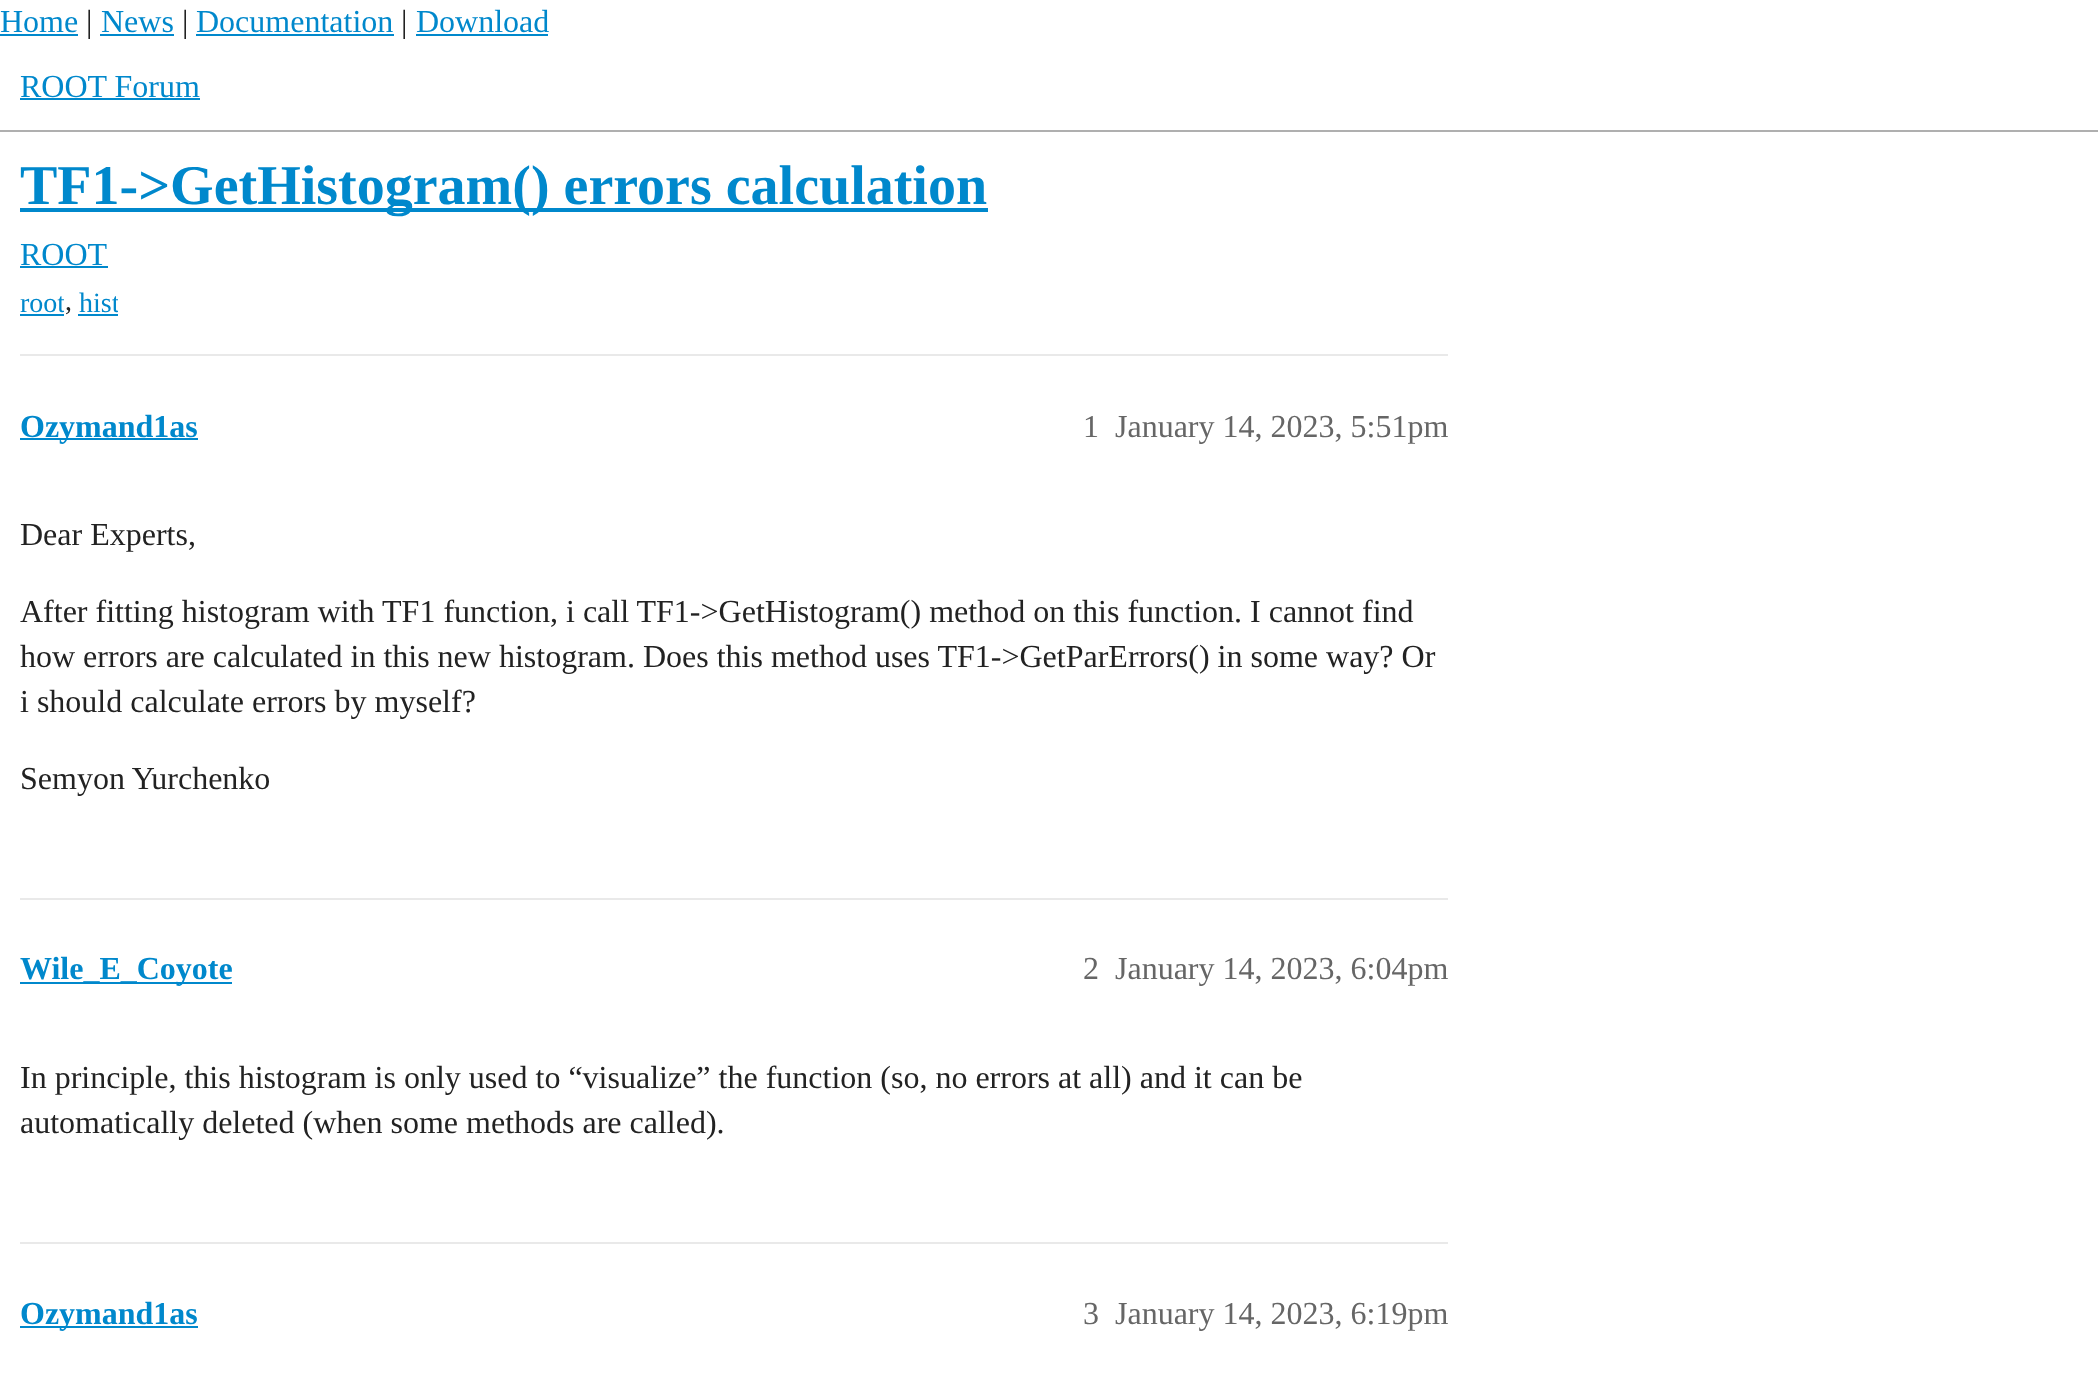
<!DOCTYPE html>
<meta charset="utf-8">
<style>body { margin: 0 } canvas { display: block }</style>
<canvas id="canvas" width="2098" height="1378"></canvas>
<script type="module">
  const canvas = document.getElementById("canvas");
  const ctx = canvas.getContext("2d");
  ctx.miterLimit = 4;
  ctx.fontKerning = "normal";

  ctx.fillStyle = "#ffffff";
  ctx.fillRect(0, 0, 2098, 1378);
  ctx.font = "32px Liberation Serif";
  ctx.fillStyle = "#0088cc";
  ctx.fillText("Home", 0, 32);
  ctx.fillRect(0, 34, 78, 2);
  ctx.fillStyle = "#222222";
  ctx.fillText("|", 86, 32);
  ctx.fillStyle = "#0088cc";
  ctx.fillText("News", 101, 32);
  ctx.fillRect(100, 34, 74, 2);
  ctx.fillStyle = "#222222";
  ctx.fillText("|", 182, 32);
  ctx.fillStyle = "#0088cc";
  ctx.fillText("Documentation", 196, 32);
  ctx.fillRect(196, 34, 198, 2);
  ctx.fillStyle = "#222222";
  ctx.fillText("|", 401, 32);
  ctx.fillStyle = "#0088cc";
  ctx.fillText("Download", 416, 32);
  ctx.fillRect(416, 34, 132, 2);
  ctx.fillStyle = "#afafaf";
  ctx.fillRect(0, 130, 2098, 2);
  ctx.fillStyle = "#0088cc";
  ctx.fillText("ROOT Forum", 20, 97);
  ctx.fillRect(20, 98, 180, 2);
  ctx.fillRect(20, 208, 968, 4);
  ctx.font = "bold 56px Liberation Serif";
  ctx.fillText("TF1->GetHistogram() errors calculation", 20, 204);
  ctx.font = "32px Liberation Serif";
  ctx.fillText("ROOT", 20, 265);
  ctx.fillRect(20, 266, 88, 2);
  ctx.save();
  ctx.beginPath();
  ctx.rect(20, 284, 44, 38);
  ctx.clip();
  ctx.font = "28px Liberation Serif";
  ctx.fillText("root", 20, 312);
  ctx.restore();
  ctx.fillRect(20, 314, 44, 2);
  ctx.font = "28px Liberation Serif";
  ctx.fillStyle = "#222222";
  ctx.fillText(",", 65, 310);
  ctx.save();
  ctx.beginPath();
  ctx.rect(78, 284, 40, 38);
  ctx.clip();
  ctx.fillStyle = "#0088cc";
  ctx.fillText("hist", 79, 312);
  ctx.restore();
  ctx.fillStyle = "#0088cc";
  ctx.fillRect(78, 314, 40, 2);
  ctx.fillStyle = "#e9e9e9";
  ctx.fillRect(20, 354, 1428, 2);
  ctx.fillStyle = "#0088cc";
  ctx.fillRect(20, 438, 178, 2);
  ctx.font = "bold 32px Liberation Serif";
  ctx.fillText("Ozymand1as", 20, 437);
  ctx.font = "32px Liberation Serif";
  ctx.fillStyle = "#666666";
  ctx.fillText("1", 1083, 437);
  ctx.fillText("January 14, 2023, 5:51pm", 1115, 437);
  ctx.fillStyle = "#222222";
  ctx.fillText("Dear Experts,", 20, 545);
  ctx.fillText("After fitting histogram with TF1 function, i call TF1->GetHistogram() method on this function. I cannot find", 20, 622);
  ctx.fillText("how errors are calculated in this new histogram. Does this method uses TF1->GetParErrors() in some way? Or", 20, 667);
  ctx.fillText("i should calculate errors by myself?", 20, 712);
  ctx.fillText("Semyon Yurchenko", 20, 789);
  ctx.fillStyle = "#e9e9e9";
  ctx.fillRect(20, 898, 1428, 2);
  ctx.fillStyle = "#0088cc";
  ctx.fillRect(20, 982, 212, 2);
  ctx.font = "bold 32px Liberation Serif";
  ctx.fillText("Wile_E_Coyote", 20, 979);
  ctx.font = "32px Liberation Serif";
  ctx.fillStyle = "#666666";
  ctx.fillText("2", 1083, 979);
  ctx.fillText("January 14, 2023, 6:04pm", 1115, 979);
  ctx.fillStyle = "#222222";
  ctx.fillText("In principle, this histogram is only used to “visualize” the function (so, no errors at all) and it can be", 20, 1088);
  ctx.fillText("automatically deleted (when some methods are called).", 20, 1133);
  ctx.fillStyle = "#e9e9e9";
  ctx.fillRect(20, 1242, 1428, 2);
  ctx.fillStyle = "#0088cc";
  ctx.fillRect(20, 1326, 178, 2);
  ctx.font = "bold 32px Liberation Serif";
  ctx.fillText("Ozymand1as", 20, 1324);
  ctx.font = "32px Liberation Serif";
  ctx.fillStyle = "#666666";
  ctx.fillText("3", 1083, 1324);
  ctx.fillText("January 14, 2023, 6:19pm", 1115, 1324);
</script>
